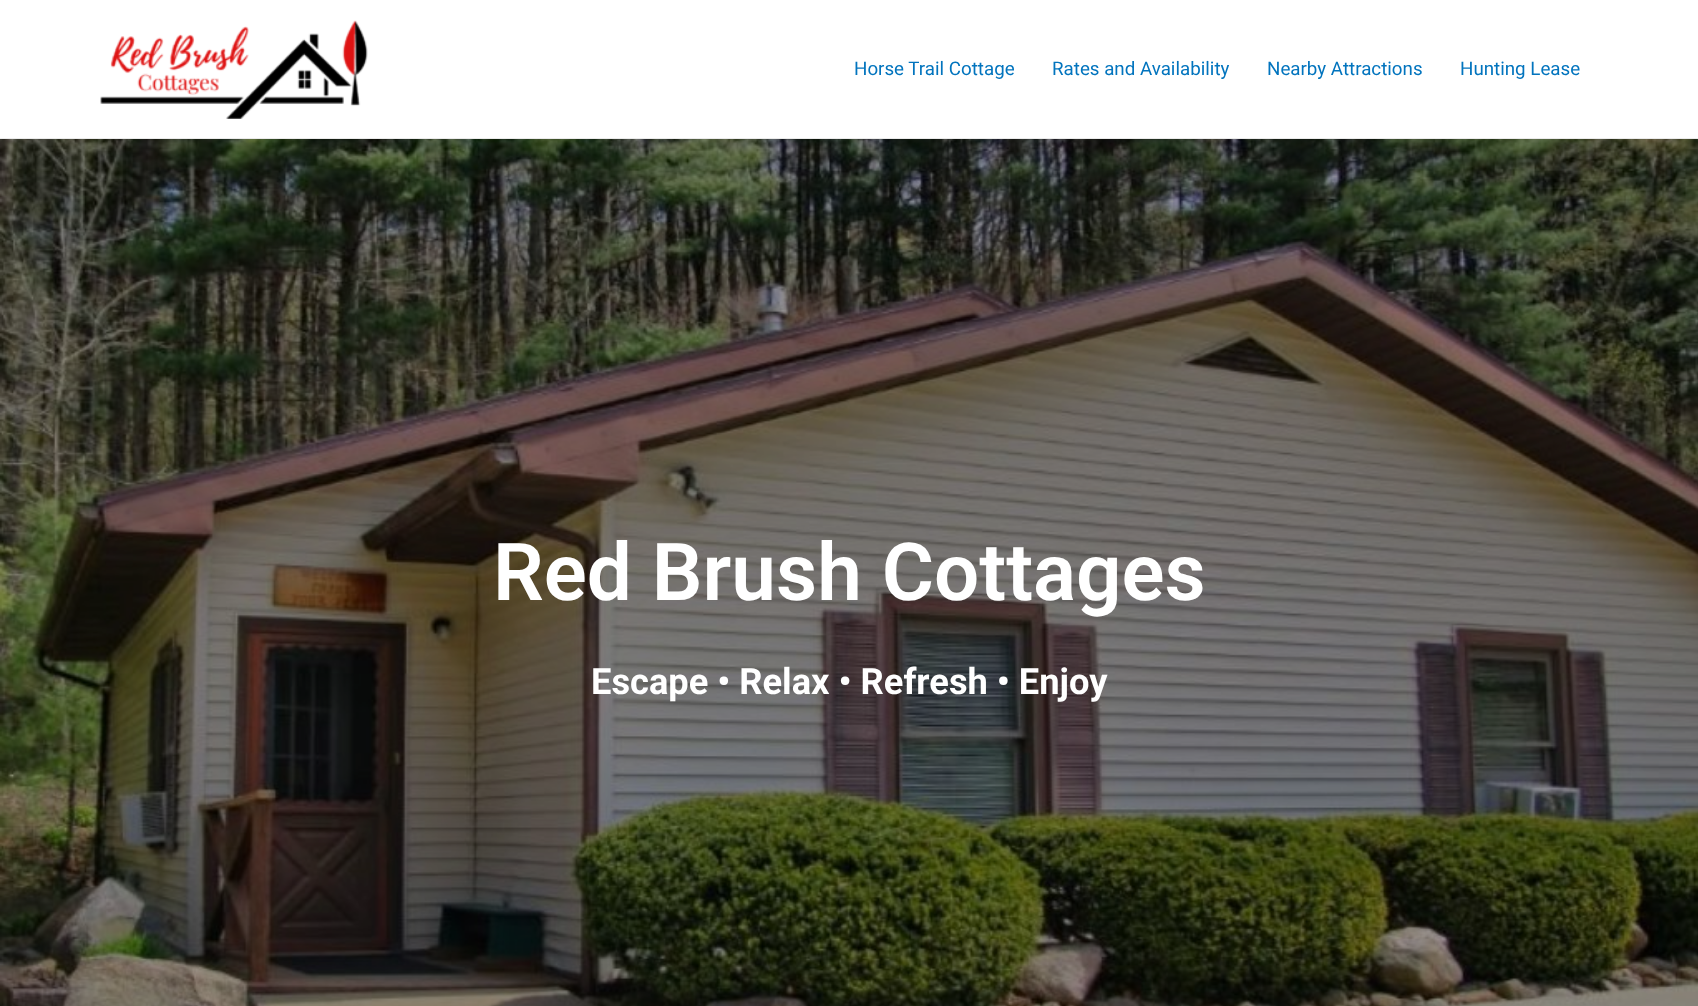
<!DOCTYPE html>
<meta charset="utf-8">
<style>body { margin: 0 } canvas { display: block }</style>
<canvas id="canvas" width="1698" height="1006"></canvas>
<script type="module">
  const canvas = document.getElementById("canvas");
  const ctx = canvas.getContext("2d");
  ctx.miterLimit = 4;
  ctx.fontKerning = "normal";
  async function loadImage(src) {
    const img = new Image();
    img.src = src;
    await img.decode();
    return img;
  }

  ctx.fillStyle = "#ffffff";
  ctx.fillRect(0, 0, 1698, 1006);
  ctx.fillStyle = "#eaeaea";
  ctx.fillRect(0, 138, 1698, 1);
  ctx.drawImage(await loadImage("img1.png"), 100, 20, 268, 99);
  ctx.font = "18.75px Roboto";
  ctx.fillStyle = "#0274be";
  ctx.fillText("Horse Trail Cottage", 854, 75);
  ctx.fillText("Rates and Availability", 1052, 75);
  ctx.fillText("Nearby Attractions", 1267, 75);
  ctx.fillText("Hunting Lease", 1460, 75);
  ctx.drawImage(await loadImage("img2.png"), 0, 139, 1698, 867);
  ctx.font = "600 80px Roboto";
  ctx.fillStyle = "#ffffff";
  ctx.fillText("Red Brush Cottages", 493, 600);
  ctx.font = "bold 36.25px Roboto";
  ctx.fillText("Escape • Relax • Refresh • Enjoy", 591, 694);
</script>
